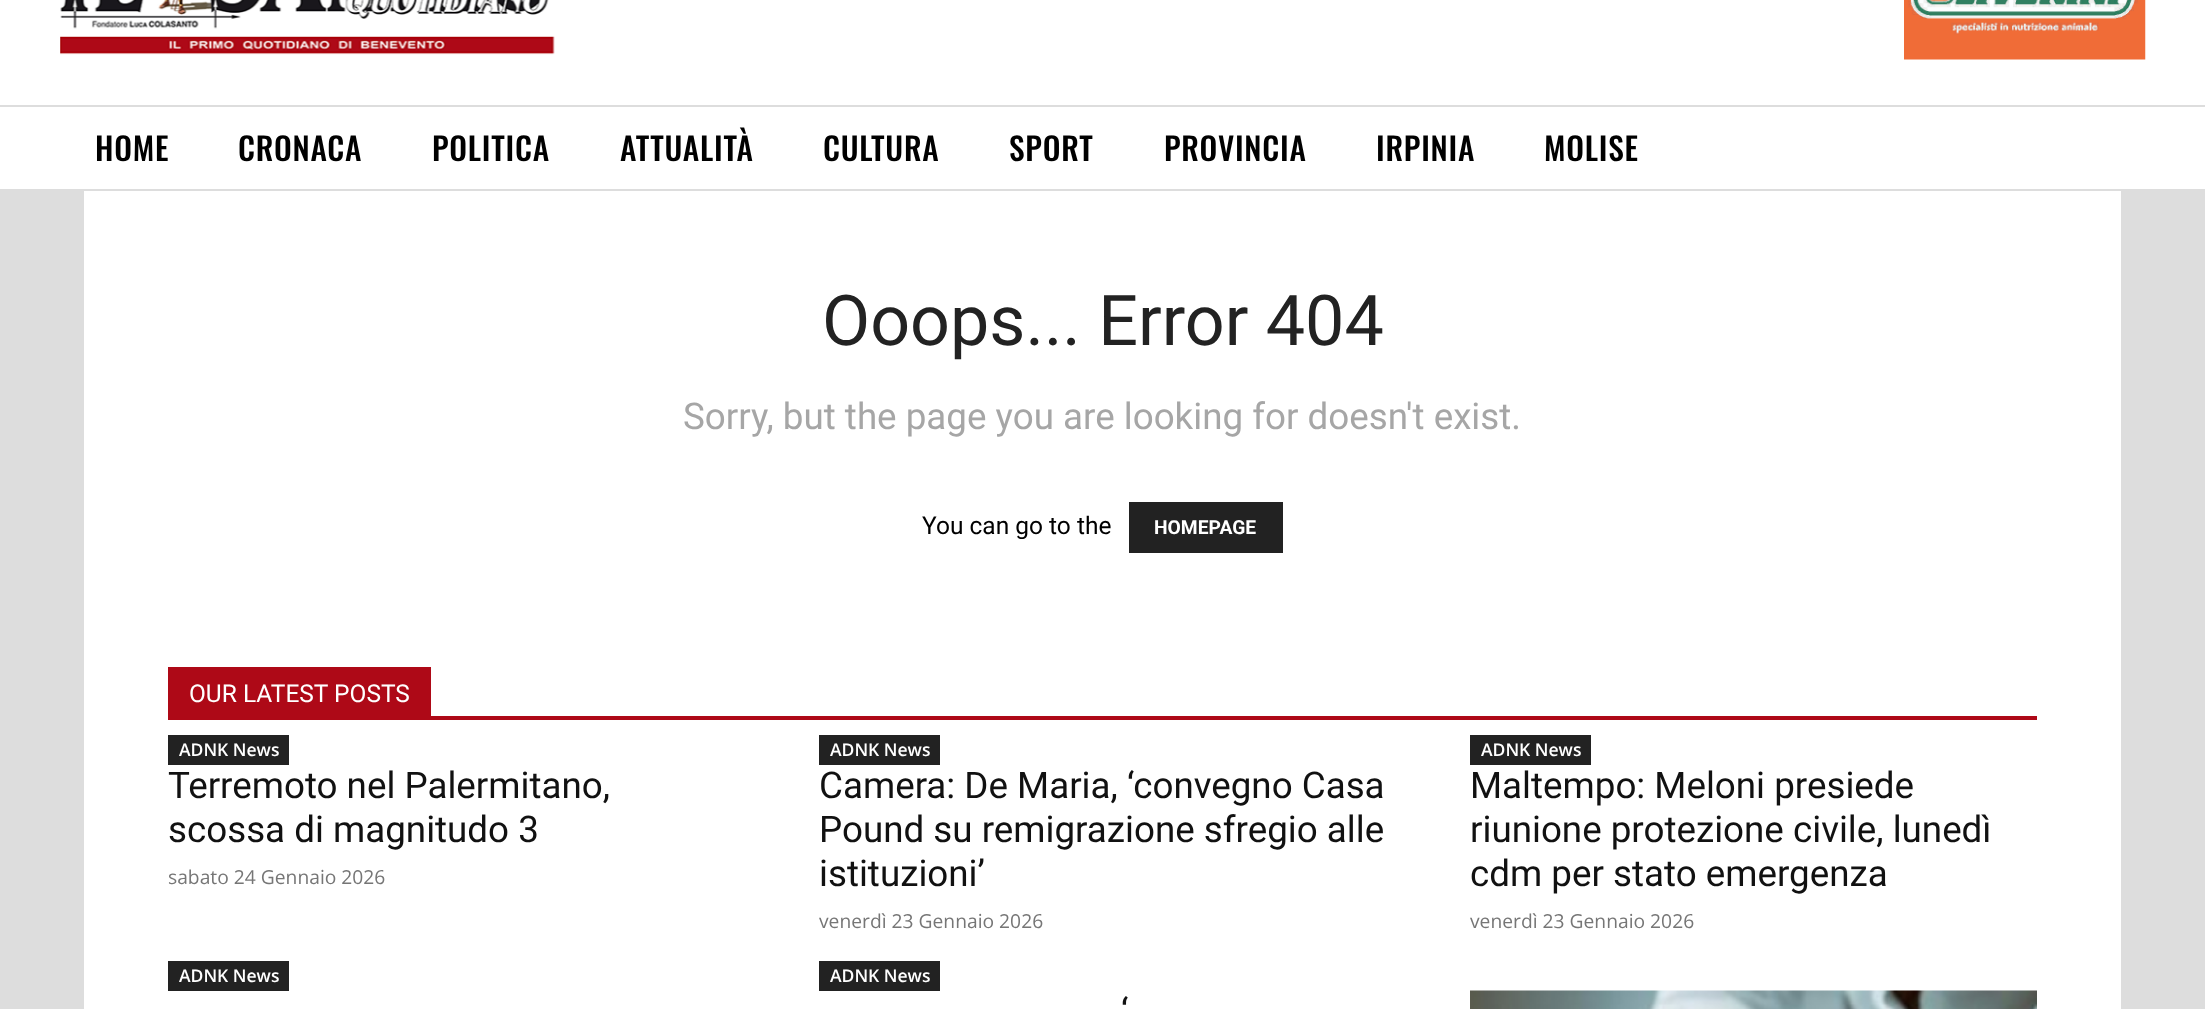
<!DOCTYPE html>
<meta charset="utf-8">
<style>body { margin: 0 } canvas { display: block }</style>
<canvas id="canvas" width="2205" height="1009"></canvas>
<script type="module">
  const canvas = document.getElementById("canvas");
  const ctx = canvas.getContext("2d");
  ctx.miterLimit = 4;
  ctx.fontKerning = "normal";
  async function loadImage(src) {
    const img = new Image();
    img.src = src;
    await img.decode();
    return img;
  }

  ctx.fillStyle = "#dddddd";
  ctx.fillRect(0, 0, 2205, 1009);
  ctx.fillStyle = "#ffffff";
  ctx.fillRect(0, 0, 2205, 189);
  ctx.drawImage(await loadImage("img1.png"), 60, 0, 495, 55);
  ctx.drawImage(await loadImage("img2.png"), 1904, 0, 242, 60);
  ctx.fillStyle = "#dddddd";
  ctx.fillRect(0, 105, 2205, 2);
  ctx.letterSpacing = "0.75px";
  ctx.font = "500 31.5px Oswald";
  ctx.fillStyle = "#000000";
  ctx.fillText("HOME", 95, 161);
  ctx.fillText("CRONACA", 238, 161);
  ctx.fillText("POLITICA", 432, 161);
  ctx.fillText("ATTUALITÀ", 620, 161);
  ctx.fillText("CULTURA", 823, 161);
  ctx.fillText("SPORT", 1009, 161);
  ctx.fillText("PROVINCIA", 1164, 161);
  ctx.fillText("IRPINIA", 1376, 161);
  ctx.fillText("MOLISE", 1544, 161);
  ctx.fillStyle = "#ffffff";
  ctx.fillRect(84, 191, 2037, 818);
  ctx.letterSpacing = "0px";
  ctx.font = "70px Roboto";
  ctx.fillStyle = "#222222";
  ctx.fillText("Ooops... Error 404", 822, 345);
  ctx.font = "36.75px Roboto";
  ctx.fillStyle = "#a6a6a6";
  ctx.fillText("Sorry, but the page you are looking for doesn't exist.", 683, 429);
  ctx.font = "24.5px Roboto";
  ctx.fillStyle = "#000000";
  ctx.fillText("You can go to the", 922, 534);
  ctx.fillStyle = "#222222";
  ctx.fillRect(1129, 502, 154, 51);
  ctx.font = "bold 19.25px Roboto";
  ctx.fillStyle = "#ffffff";
  ctx.fillText("HOMEPAGE", 1154, 534);
  ctx.fillStyle = "#ae0917";
  ctx.fillRect(168, 716, 1869, 4);
  ctx.fillRect(168, 667, 263, 49);
  ctx.font = "24.5px Roboto";
  ctx.fillStyle = "#ffffff";
  ctx.fillText("OUR LATEST POSTS", 189, 702);
  ctx.fillStyle = "#222222";
  ctx.fillRect(168, 735, 121, 30);
  ctx.font = "600 17.5px Open Sans";
  ctx.fillStyle = "#ffffff";
  ctx.fillText("ADNK News", 179, 756);
  ctx.font = "36.75px Roboto";
  ctx.fillStyle = "#111111";
  ctx.fillText("Terremoto nel Palermitano,", 168, 798);
  ctx.fillText("scossa di magnitudo 3", 168, 842);
  ctx.font = "19.25px Open Sans";
  ctx.fillStyle = "#767676";
  ctx.fillText("sabato 24 Gennaio 2026", 168, 884);
  ctx.fillStyle = "#222222";
  ctx.fillRect(819, 735, 121, 30);
  ctx.font = "600 17.5px Open Sans";
  ctx.fillStyle = "#ffffff";
  ctx.fillText("ADNK News", 830, 756);
  ctx.font = "36.75px Roboto";
  ctx.fillStyle = "#111111";
  ctx.fillText("Camera: De Maria, ‘convegno Casa", 819, 798);
  ctx.fillText("Pound su remigrazione sfregio alle", 819, 842);
  ctx.fillText("istituzioni’", 819, 886);
  ctx.font = "19.25px Open Sans";
  ctx.fillStyle = "#767676";
  ctx.fillText("venerdì 23 Gennaio 2026", 819, 928);
  ctx.fillStyle = "#222222";
  ctx.fillRect(1470, 735, 121, 30);
  ctx.font = "600 17.5px Open Sans";
  ctx.fillStyle = "#ffffff";
  ctx.fillText("ADNK News", 1481, 756);
  ctx.font = "36.75px Roboto";
  ctx.fillStyle = "#111111";
  ctx.fillText("Maltempo: Meloni presiede", 1470, 798);
  ctx.fillText("riunione protezione civile, lunedì", 1470, 842);
  ctx.fillText("cdm per stato emergenza", 1470, 886);
  ctx.font = "19.25px Open Sans";
  ctx.fillStyle = "#767676";
  ctx.fillText("venerdì 23 Gennaio 2026", 1470, 928);
  ctx.fillStyle = "#222222";
  ctx.fillRect(168, 961, 121, 30);
  ctx.font = "600 17.5px Open Sans";
  ctx.fillStyle = "#ffffff";
  ctx.fillText("ADNK News", 179, 982);
  ctx.fillStyle = "#222222";
  ctx.fillRect(819, 961, 121, 30);
  ctx.fillStyle = "#ffffff";
  ctx.fillText("ADNK News", 830, 982);
  ctx.font = "36.75px Roboto";
  ctx.fillStyle = "#111111";
  ctx.fillText("‘", 1121, 1024);
  ctx.drawImage(await loadImage("img3.png"), 1470, 990, 567, 19);
</script>
